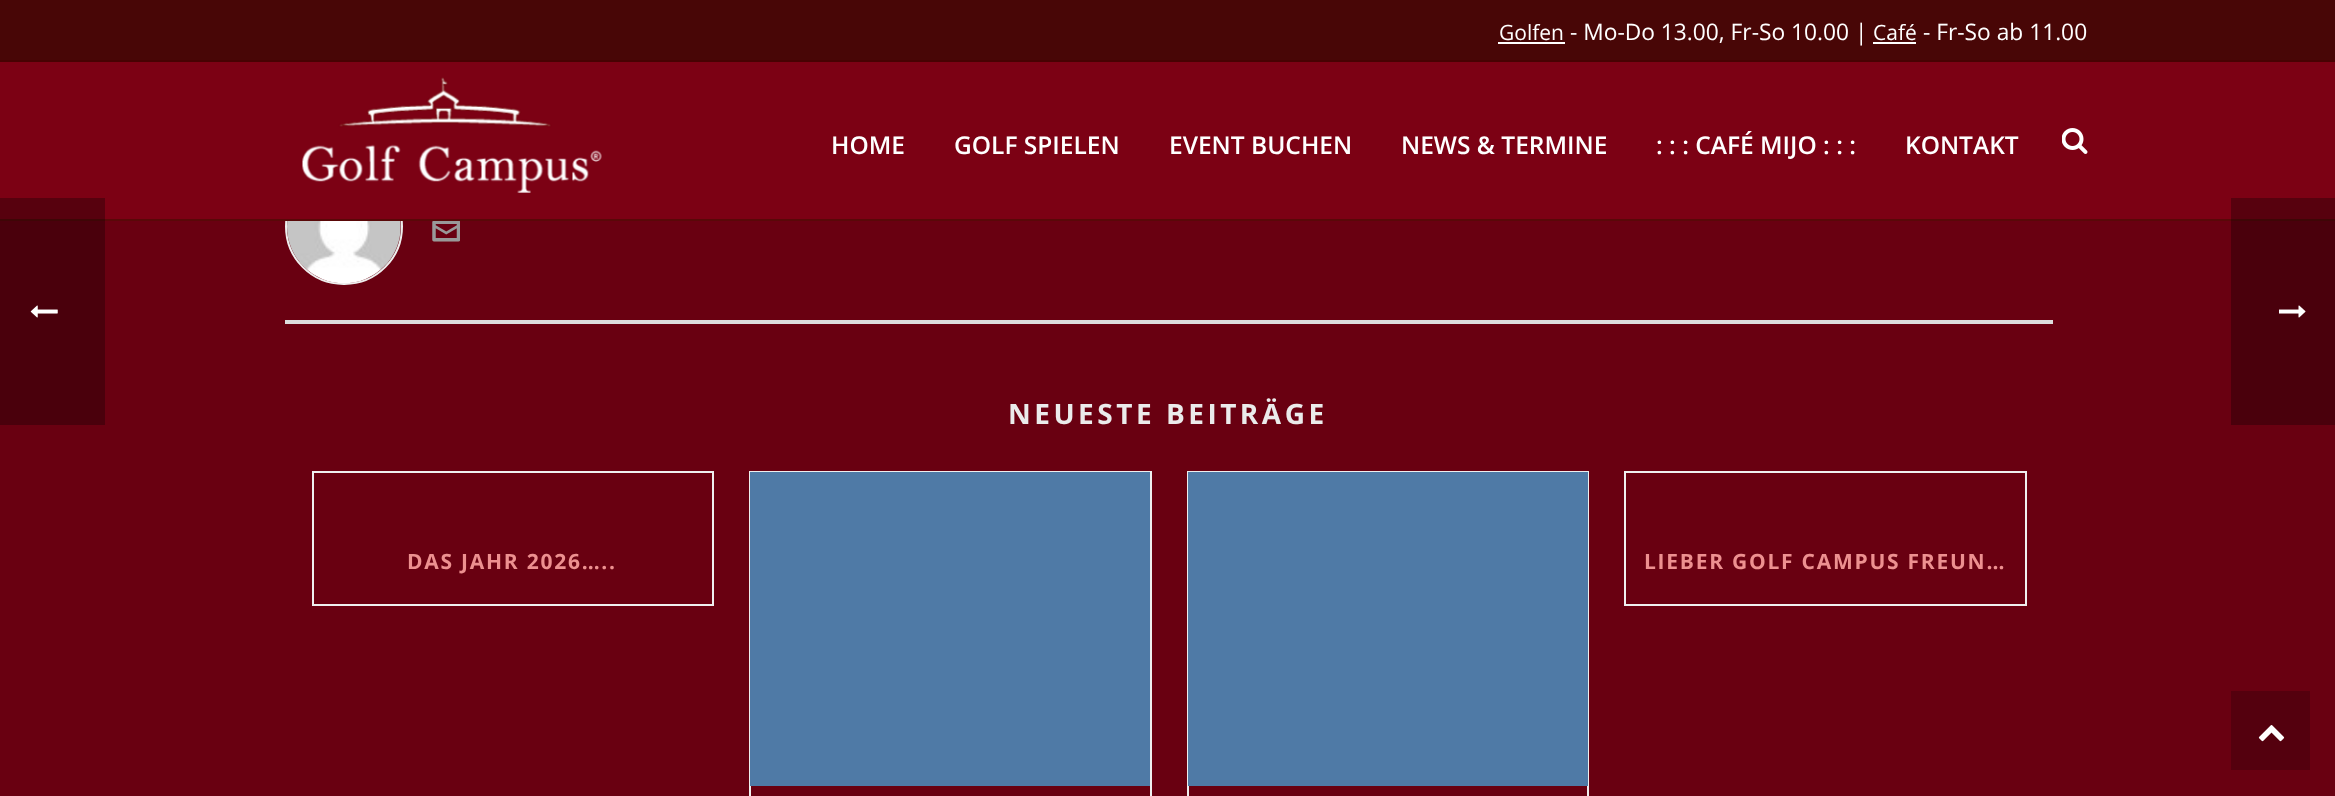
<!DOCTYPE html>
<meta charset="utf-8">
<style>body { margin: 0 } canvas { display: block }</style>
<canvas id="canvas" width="2335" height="796"></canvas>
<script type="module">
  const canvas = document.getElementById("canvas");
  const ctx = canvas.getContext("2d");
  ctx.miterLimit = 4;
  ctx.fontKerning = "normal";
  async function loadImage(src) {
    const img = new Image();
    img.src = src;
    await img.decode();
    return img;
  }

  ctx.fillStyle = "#690011";
  ctx.fillRect(0, 0, 2335, 796);
  ctx.fillStyle = "#4a000c";
  ctx.fillRect(0, 221, 105, 204);
  ctx.drawImage(await loadImage("img1.png"), 30, 305, 28, 13);
  ctx.fillStyle = "#480606";
  ctx.fillRect(0, 0, 2335, 60);
  ctx.fillStyle = "#470202";
  ctx.fillRect(0, 60, 2335, 2);
  ctx.font = "21px Open Sans";
  ctx.fillStyle = "#ffffff";
  ctx.fillText("Golfen", 1499, 40);
  ctx.fillRect(1498, 42, 67, 2);
  ctx.font = "22.75px Open Sans";
  ctx.fillText("- Mo-Do 13.00, Fr-So 10.00 |", 1570, 40);
  ctx.font = "21px Open Sans";
  ctx.fillText("Café", 1873, 40);
  ctx.fillRect(1873, 42, 43, 2);
  ctx.font = "22.75px Open Sans";
  ctx.fillText("- Fr-So ab 11.00", 1923, 40);
  ctx.beginPath();
  ctx.roundRect(286, 169, 116, 115, 57.5);
  ctx.strokeStyle = "#eeeeee";
  ctx.lineWidth = 2;
  ctx.stroke();
  ctx.fillStyle = "#590808";
  ctx.fillRect(105, 219, 2126, 2);
  ctx.fillStyle = "#3e0606";
  ctx.fillRect(2231, 219, 104, 2);
  ctx.fillRect(0, 219, 105, 2);
  ctx.fillStyle = "#7c0114";
  ctx.fillRect(0, 62, 2335, 157);
  ctx.fillStyle = "#57010e";
  ctx.fillRect(2231, 198, 104, 21);
  ctx.fillRect(0, 198, 105, 21);
  ctx.drawImage(await loadImage("img2.png"), 302, 77, 300, 116);
  ctx.font = "600 24.5px Open Sans";
  ctx.fillStyle = "#ffffff";
  ctx.fillText("HOME", 831, 154);
  ctx.fillText("GOLF SPIELEN", 954, 154);
  ctx.fillText("EVENT BUCHEN", 1169, 154);
  ctx.fillText("NEWS & TERMINE", 1401, 154);
  ctx.fillText(": : : CAFÉ MIJO : : :", 1656, 154);
  ctx.fillText("KONTAKT", 1905, 154);
  ctx.drawImage(await loadImage("img3.png"), 2062, 128, 26, 26);
  ctx.fillStyle = "#4a000c";
  ctx.fillRect(2231, 221, 104, 204);
  ctx.fillStyle = "#dddddd";
  ctx.fillRect(285, 320, 1768, 4);
  ctx.drawImage(await loadImage("img4.png"), 287, 221, 114, 62);
  ctx.drawImage(await loadImage("img5.png"), 432, 221, 28, 21);
  ctx.letterSpacing = "3.5px";
  ctx.font = "bold 28px Open Sans";
  ctx.fillStyle = "#ebebeb";
  ctx.fillText("NEUESTE BEITRÄGE", 1008, 424);
  ctx.strokeStyle = "#efefef";
  ctx.strokeRect(313, 472, 400, 133);
  ctx.letterSpacing = "1.75px";
  ctx.font = "bold 21px Open Sans";
  ctx.fillStyle = "#ed9090";
  ctx.fillText("DAS JAHR 2026…..", 407, 569);
  ctx.strokeRect(750, 472, 401, 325);
  ctx.fillStyle = "#4f7aa6";
  ctx.fillRect(750, 472, 400, 314);
  ctx.strokeRect(1188, 472, 400, 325);
  ctx.fillRect(1188, 472, 400, 314);
  ctx.strokeRect(1625, 472, 401, 133);
  ctx.fillStyle = "#ed9090";
  ctx.fillText("LIEBER GOLF CAMPUS FREUN…", 1644, 569);
  ctx.drawImage(await loadImage("img6.png"), 2279, 305, 27, 13);
  ctx.fillStyle = "#54000e";
  ctx.fillRect(2231, 691, 79, 79);
  ctx.drawImage(await loadImage("img7.png"), 2258, 725, 27, 17);
</script>
